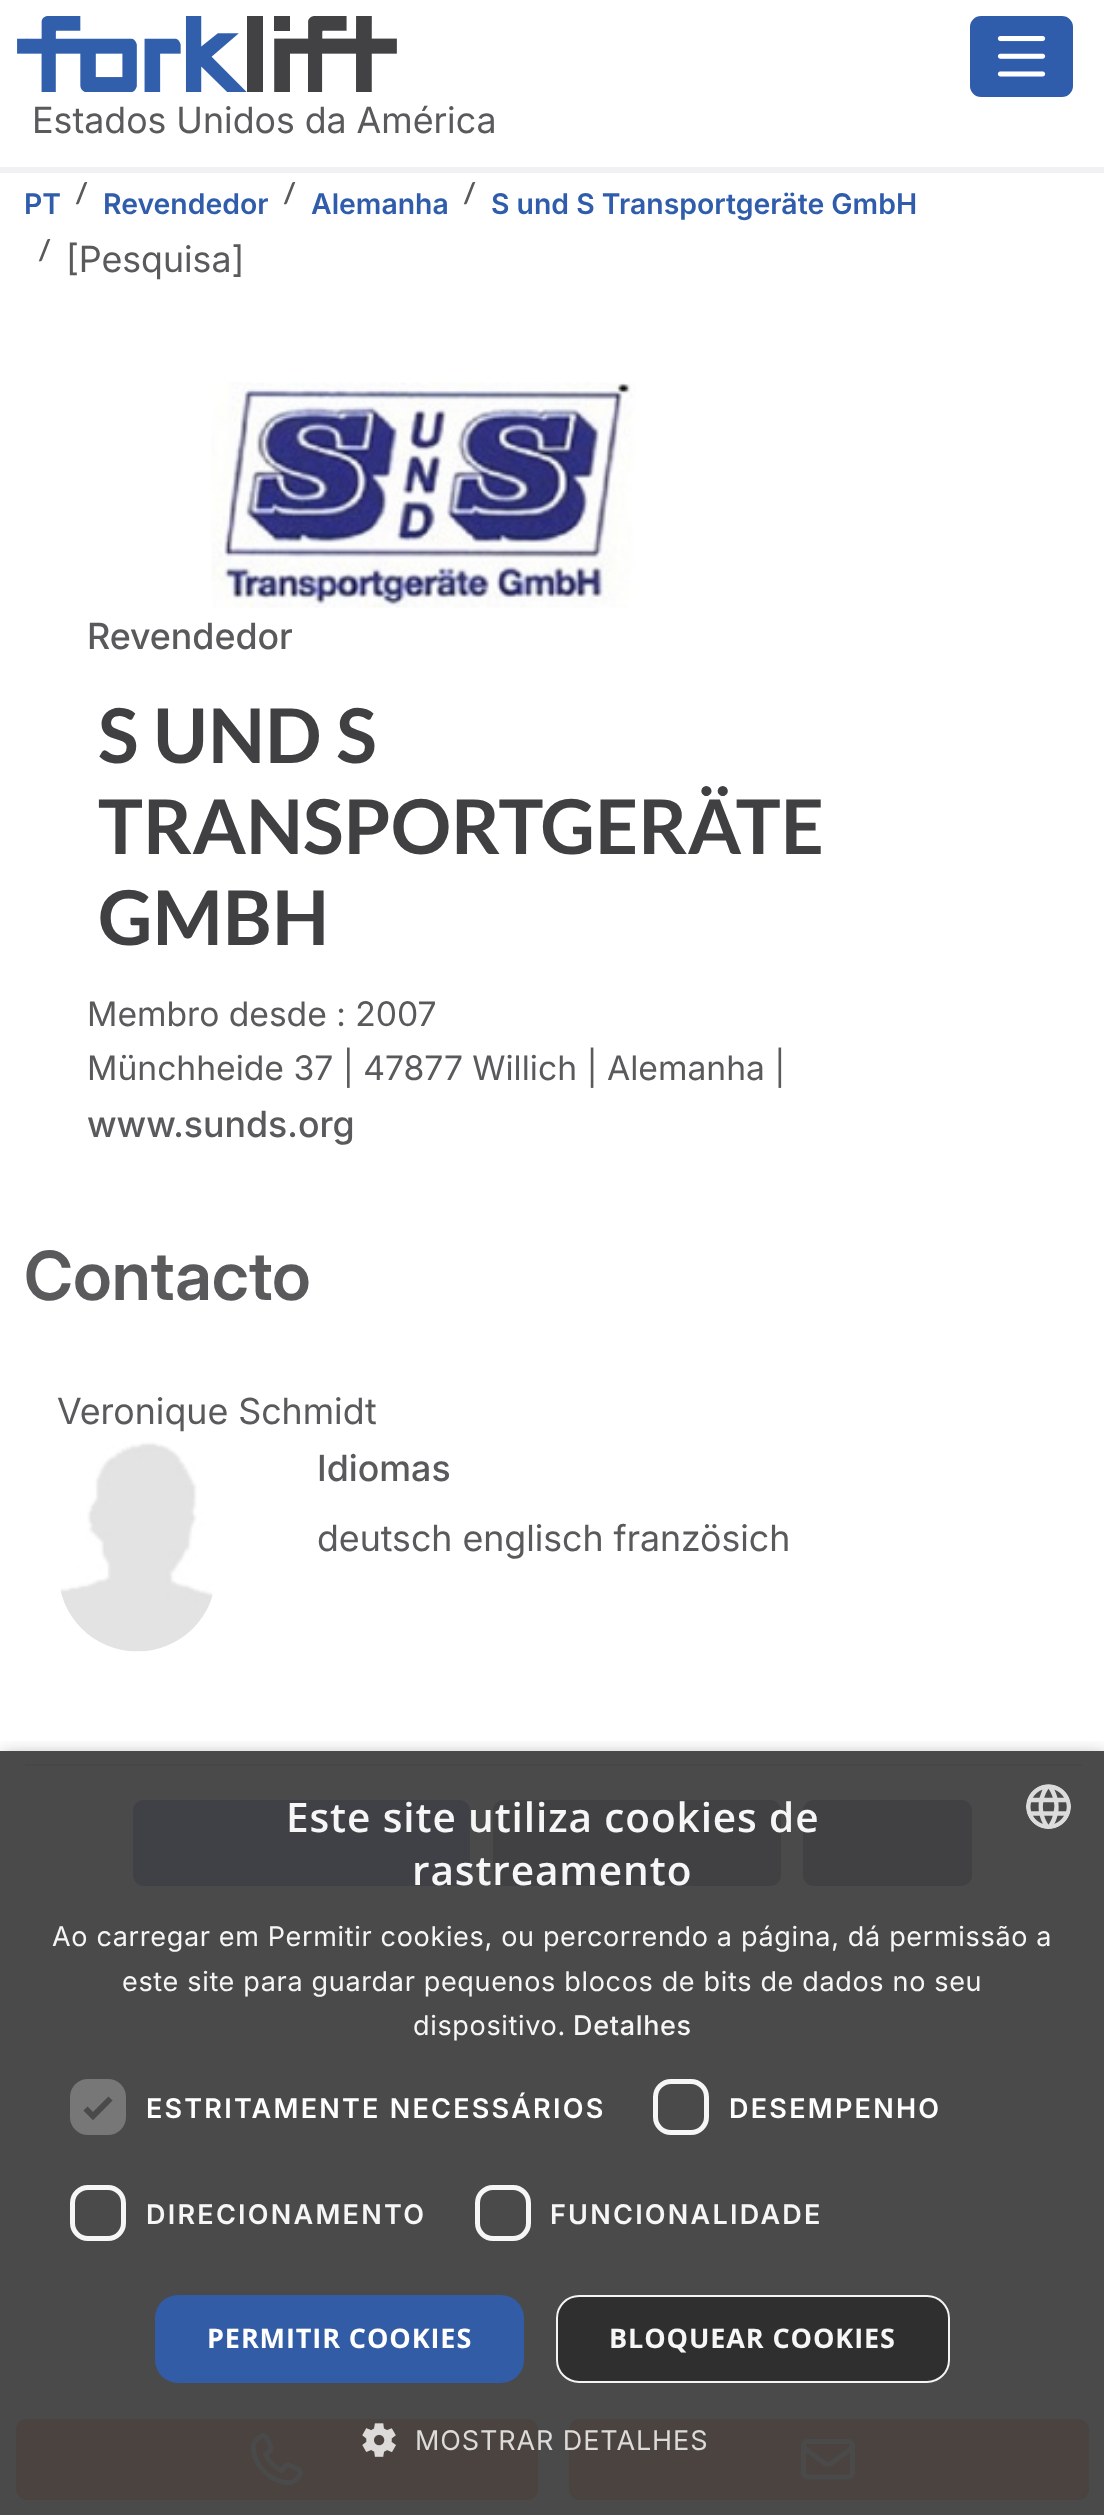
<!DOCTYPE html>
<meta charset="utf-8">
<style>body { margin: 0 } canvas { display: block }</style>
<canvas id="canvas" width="1104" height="2515"></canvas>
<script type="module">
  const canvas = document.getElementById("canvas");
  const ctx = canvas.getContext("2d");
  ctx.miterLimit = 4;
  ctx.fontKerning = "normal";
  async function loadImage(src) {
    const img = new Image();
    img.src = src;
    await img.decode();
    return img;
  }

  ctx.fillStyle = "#f1f1f4";
  ctx.fillRect(0, 0, 1104, 2515);
  ctx.fillStyle = "#ffffff";
  ctx.fillRect(0, 0, 1104, 167);
  ctx.fillStyle = "#305dab";
  ctx.beginPath();
  ctx.roundRect(971, 17, 101, 79, 10);
  ctx.fill();
  ctx.strokeStyle = "#305dab";
  ctx.lineWidth = 2;
  ctx.stroke();
  ctx.drawImage(await loadImage("img1.png"), 997, 36, 49, 41);
  ctx.drawImage(await loadImage("img2.png"), 17, 16, 380, 76);
  ctx.font = "36px Inter";
  ctx.fillStyle = "#5a5a5c";
  ctx.fillText("Estados Unidos da América", 32, 133);
  ctx.fillStyle = "#ffffff";
  ctx.fillRect(0, 173, 1104, 1578);
  ctx.fillStyle = "#4a4a4b";
  ctx.fillRect(0, 1751, 1104, 764);
  ctx.font = "600 28.4px Inter";
  ctx.fillStyle = "#305dab";
  ctx.fillText("PT", 24, 214);
  ctx.font = "bold 28.4px Lato";
  ctx.fillStyle = "#5a5a5c";
  ctx.fillText("/", 76, 203);
  ctx.font = "600 28.4px Inter";
  ctx.fillStyle = "#305dab";
  ctx.fillText("Revendedor", 103, 214);
  ctx.font = "bold 28.4px Lato";
  ctx.fillStyle = "#5a5a5c";
  ctx.fillText("/", 284, 203);
  ctx.font = "600 28.4px Inter";
  ctx.fillStyle = "#305dab";
  ctx.fillText("Alemanha", 311, 214);
  ctx.font = "bold 28.4px Lato";
  ctx.fillStyle = "#5a5a5c";
  ctx.fillText("/", 464, 203);
  ctx.font = "600 28.4px Inter";
  ctx.fillStyle = "#305dab";
  ctx.fillText("S und S Transportgeräte GmbH", 491, 214);
  ctx.font = "bold 28.4px Lato";
  ctx.fillStyle = "#5a5a5c";
  ctx.fillText("/", 39, 260);
  ctx.font = "36px Inter";
  ctx.fillText("[Pesquisa]", 66, 272);
  ctx.drawImage(await loadImage("img3.png"), 210, 382, 426, 226);
  ctx.font = "500 36px Inter";
  ctx.fillText("Revendedor", 87, 649);
  ctx.font = "bold 75.5px Lato";
  ctx.fillStyle = "#404042";
  ctx.fillText("S UND S", 98, 763);
  ctx.fillText("TRANSPORTGERÄTE", 98, 854);
  ctx.fillText("GMBH", 98, 945);
  ctx.font = "33.75px 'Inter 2'";
  ctx.fillStyle = "#5a5a5c";
  ctx.fillText("Membro desde : 2007", 87, 1026);
  ctx.fillText("Münchheide 37 | 47877 Willich | Alemanha |", 87, 1080);
  ctx.font = "500 36px Inter";
  ctx.fillText("www.sunds.org", 87, 1137);
  ctx.font = "600 67.5px 'Inter 2'";
  ctx.fillText("Contacto", 24, 1300);
  ctx.font = "36px Inter";
  ctx.fillText("Veronique Schmidt", 57, 1424);
  ctx.drawImage(await loadImage("img4.png"), 60, 1442, 153, 210);
  ctx.font = "500 36px Inter";
  ctx.fillText("Idiomas", 317, 1481);
  ctx.font = "36px Inter";
  ctx.fillText("deutsch englisch französich", 317, 1551);
  ctx.fillStyle = "#4a433f";
  ctx.beginPath();
  ctx.roundRect(17, 2420, 520, 79, 10);
  ctx.fill();
  ctx.strokeStyle = "#4a433f";
  ctx.stroke();
  ctx.drawImage(await loadImage("img5.png"), 250, 2433, 53, 53);
  ctx.beginPath();
  ctx.roundRect(570, 2420, 518, 79, 10);
  ctx.fill();
  ctx.stroke();
  ctx.drawImage(await loadImage("img6.png"), 801, 2439, 54, 41);
  ctx.fillStyle = "#474749";
  ctx.fillRect(25, 1764, 1057, 2);
  ctx.fillStyle = "#3f4147";
  ctx.beginPath();
  ctx.roundRect(134, 1801, 335, 84, 10);
  ctx.fill();
  ctx.strokeStyle = "#3f4147";
  ctx.stroke();
  ctx.fillStyle = "#414143";
  ctx.beginPath();
  ctx.roundRect(493, 1800, 288, 86, 11);
  ctx.fill();
  ctx.beginPath();
  ctx.roundRect(803, 1800, 169, 86, 11);
  ctx.fill();
  ctx.save();
  ctx.beginPath();
  ctx.rect(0, 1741, 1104, 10);
  ctx.clip();
  ctx.fillStyle = "rgba(13, 13, 13, 0.35)";
  ctx.filter = "blur(9px)";
  ctx.beginPath();
  ctx.rect(2, 1755, 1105, 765);
  ctx.fill();
  ctx.filter = "none";
  ctx.restore();
  ctx.letterSpacing = "0.9px";
  ctx.font = "600 40.5px Open Sans";
  ctx.fillStyle = "#f6f6f6";
  ctx.fillText("Este site utiliza cookies de", 286, 1832);
  ctx.fillText("rastreamento", 412, 1885);
  ctx.drawImage(await loadImage("img7.png"), 1026, 1784, 45, 45);
  ctx.letterSpacing = "0.67px";
  ctx.font = "27px 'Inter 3'";
  ctx.fillText("Ao carregar em Permitir cookies, ou percorrendo a página, dá permissão a", 52, 1946);
  ctx.fillText("este site para guardar pequenos blocos de bits de dados no seu", 122, 1991);
  ctx.fillText("dispositivo.", 413, 2035);
  ctx.font = "500 27px 'Inter 2'";
  ctx.fillText("Detalhes", 573, 2035);
  ctx.fillStyle = "rgba(255, 255, 255, 0.25)";
  ctx.beginPath();
  ctx.roundRect(70, 2079, 56, 56, 18);
  ctx.fill();
  ctx.beginPath();
  ctx.moveTo(85.5, 2108.5);
  ctx.lineTo(93, 2116);
  ctx.lineTo(110.5, 2098.5);
  ctx.strokeStyle = "#4a4a4b";
  ctx.lineWidth = 5.9;
  ctx.stroke();
  ctx.letterSpacing = "2.25px";
  ctx.font = "600 27px Inter";
  ctx.fillStyle = "#ffffff";
  ctx.fillText("ESTRITAMENTE NECESSÁRIOS", 146, 2118);
  ctx.beginPath();
  ctx.roundRect(655.5, 2081.5, 51, 51, 15.5);
  ctx.strokeStyle = "rgba(255, 255, 255, 0.95)";
  ctx.lineWidth = 5;
  ctx.stroke();
  ctx.fillText("DESEMPENHO", 729, 2118);
  ctx.beginPath();
  ctx.roundRect(72.5, 2187.5, 51, 51, 15.5);
  ctx.stroke();
  ctx.fillStyle = "#f6f6f6";
  ctx.fillText("DIRECIONAMENTO", 146, 2224);
  ctx.beginPath();
  ctx.roundRect(477.5, 2187.5, 51, 51, 15.5);
  ctx.stroke();
  ctx.fillText("FUNCIONALIDADE", 550, 2224);
  ctx.fillStyle = "rgba(48, 93, 171, 0.95)";
  ctx.beginPath();
  ctx.roundRect(155, 2295, 369, 88, 23);
  ctx.fill();
  ctx.letterSpacing = "0.9px";
  ctx.font = "bold 27px Open Sans";
  ctx.fillStyle = "#ffffff";
  ctx.fillText("PERMITIR COOKIES", 207, 2348);
  ctx.fillStyle = "rgba(45, 45, 45, 0.95)";
  ctx.beginPath();
  ctx.roundRect(556, 2295, 394, 88, 23);
  ctx.fill();
  ctx.beginPath();
  ctx.roundRect(557, 2296, 392, 86, 22);
  ctx.lineWidth = 2;
  ctx.stroke();
  ctx.fillStyle = "#f6f6f6";
  ctx.fillText("BLOQUEAR COOKIES", 609, 2348);
  ctx.drawImage(await loadImage("img8.png"), 362, 2423, 34, 34);
  ctx.font = "27px 'Inter 3'";
  ctx.fillStyle = "#dcdbda";
  ctx.fillText("MOSTRAR DETALHES", 415, 2450);
</script>
